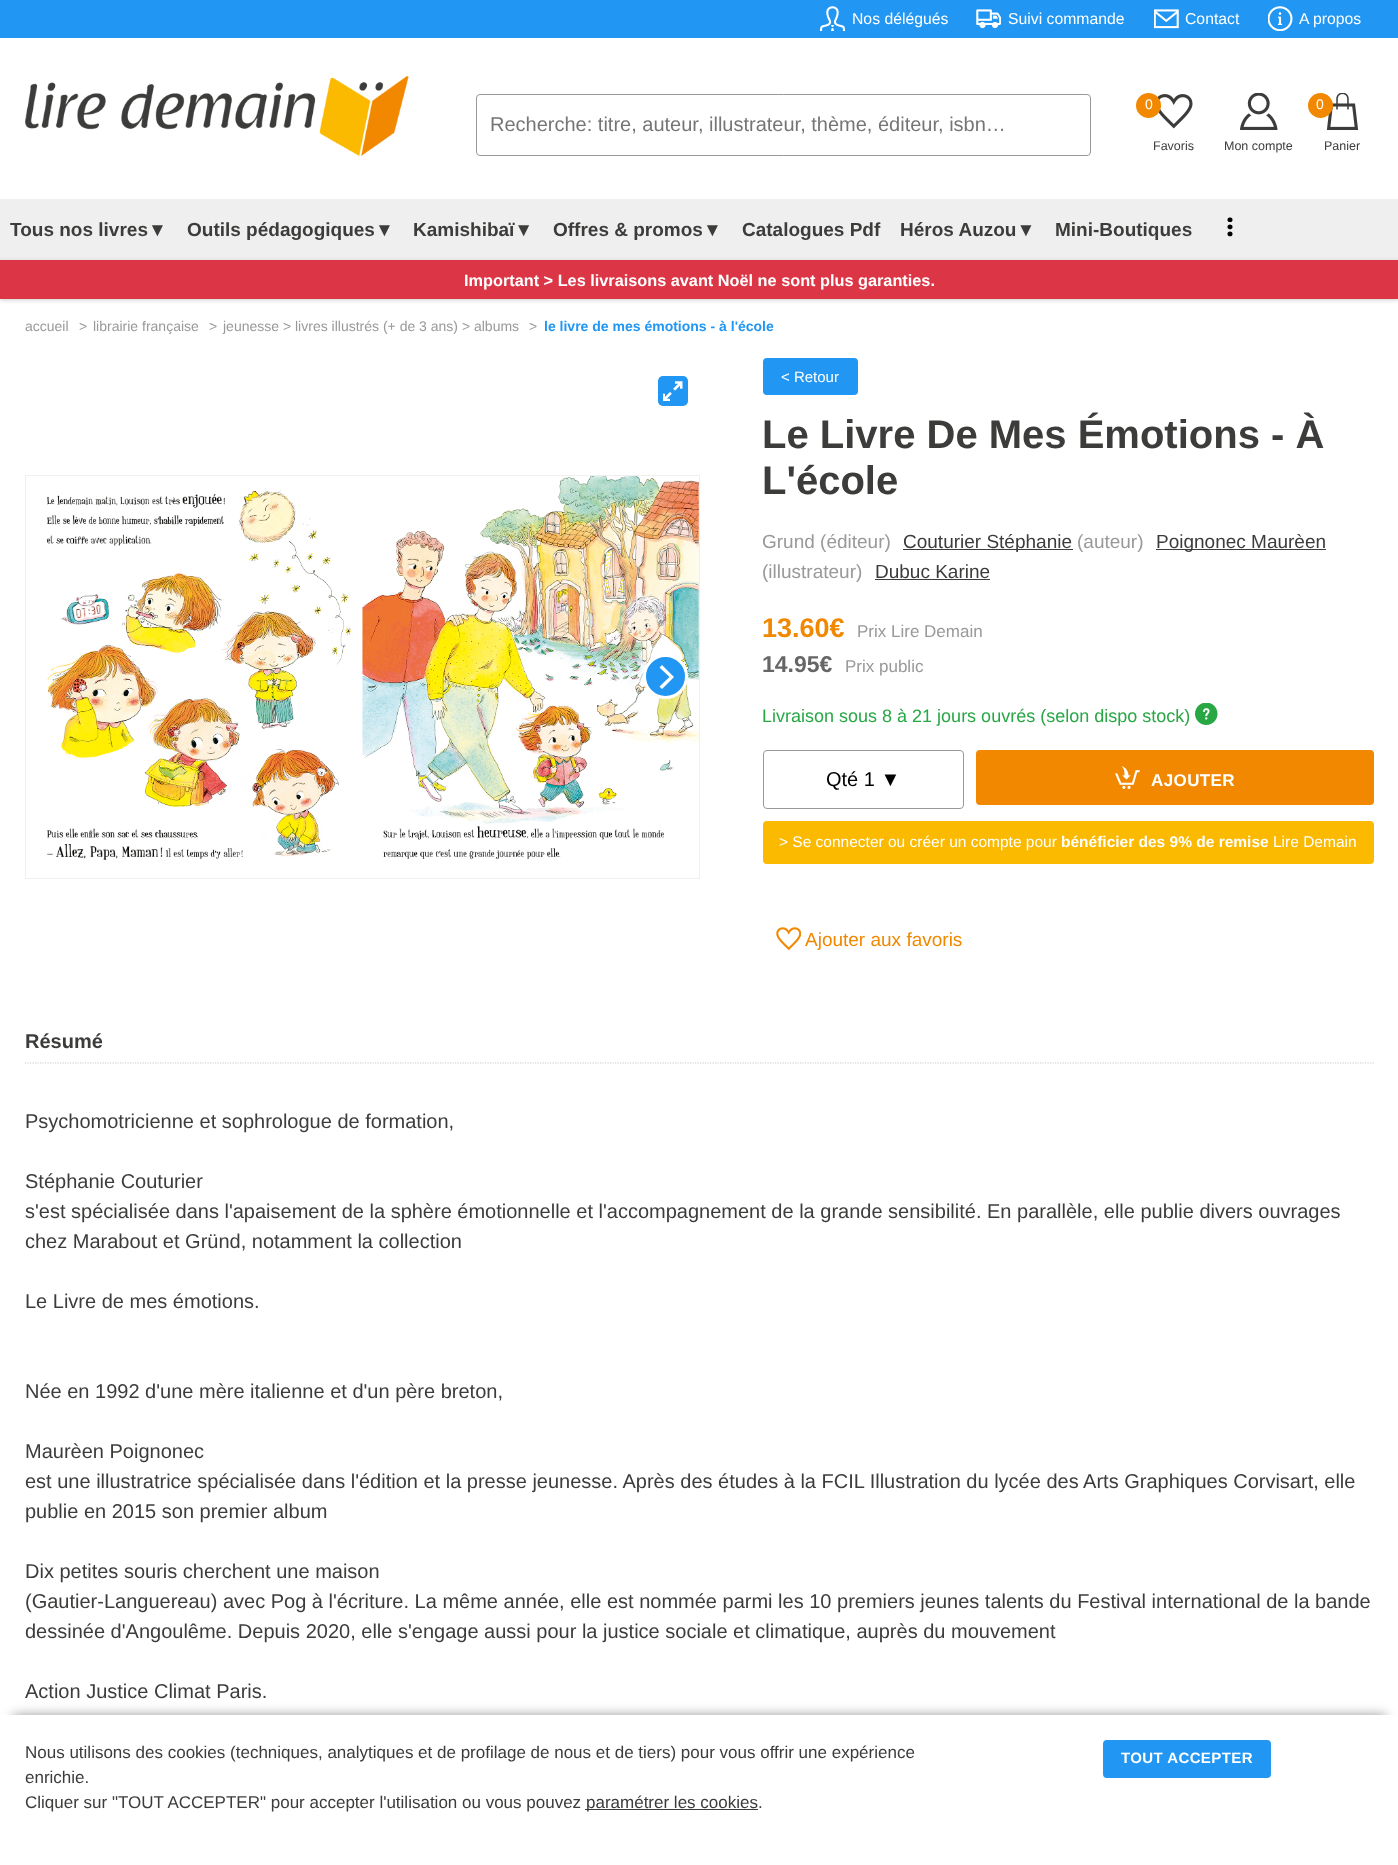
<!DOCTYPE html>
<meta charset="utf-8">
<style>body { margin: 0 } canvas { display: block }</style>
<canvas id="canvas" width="1398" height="1865"></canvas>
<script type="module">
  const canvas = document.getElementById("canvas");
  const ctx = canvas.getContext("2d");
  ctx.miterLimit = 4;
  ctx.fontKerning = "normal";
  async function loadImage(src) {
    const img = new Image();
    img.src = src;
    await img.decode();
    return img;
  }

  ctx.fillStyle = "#ffffff";
  ctx.fillRect(0, 0, 1398, 1865);
  ctx.fillStyle = "#2196f3";
  ctx.fillRect(0, 0, 1398, 38);
  ctx.drawImage(await loadImage("img1.png"), 820, 6, 25, 25);
  ctx.font = "15.75px Liberation Sans";
  ctx.fillStyle = "#ffffff";
  ctx.fillText("Nos délégués", 852, 24);
  ctx.drawImage(await loadImage("img2.png"), 976, 9, 25, 20);
  ctx.fillText("Suivi commande", 1008, 24);
  ctx.drawImage(await loadImage("img3.png"), 1154, 9, 25, 20);
  ctx.fillText("Contact", 1185, 24);
  ctx.drawImage(await loadImage("img4.png"), 1268, 6, 25, 25);
  ctx.fillText("A propos", 1299, 24);
  ctx.drawImage(await loadImage("img5.png"), 25, 75, 384, 82);
  ctx.beginPath();
  ctx.roundRect(476.5, 94.5, 614, 61, 3.5);
  ctx.strokeStyle = "#999999";
  ctx.stroke();
  ctx.font = "20px Liberation Sans";
  ctx.fillStyle = "#757575";
  ctx.fillText("Recherche: titre, auteur, illustrateur, thème, éditeur, isbn…", 490, 131);
  ctx.drawImage(await loadImage("img6.png"), 1157, 94, 36, 35);
  ctx.fillStyle = "#f18800";
  ctx.beginPath();
  ctx.arc(1148.5, 105.5, 12.5, 0, Math.PI * 2);
  ctx.fill();
  ctx.font = "14px Liberation Sans";
  ctx.fillStyle = "#ffffff";
  ctx.fillText("0", 1145, 109);
  ctx.font = "12.5px Liberation Sans";
  ctx.fillStyle = "#3c3c3b";
  ctx.fillText("Favoris", 1153, 150);
  ctx.drawImage(await loadImage("img7.png"), 1240, 93, 38, 37);
  ctx.fillText("Mon compte", 1224, 150);
  ctx.drawImage(await loadImage("img8.png"), 1326, 93, 33, 37);
  ctx.fillStyle = "#f18800";
  ctx.beginPath();
  ctx.arc(1320.5, 105.5, 12.5, 0, Math.PI * 2);
  ctx.fill();
  ctx.font = "14px Liberation Sans";
  ctx.fillStyle = "#ffffff";
  ctx.fillText("0", 1316, 109);
  ctx.font = "12.5px Liberation Sans";
  ctx.fillStyle = "#3c3c3b";
  ctx.fillText("Panier", 1324, 150);
  ctx.fillStyle = "#efefef";
  ctx.fillRect(0, 199, 1398, 61);
  ctx.font = "bold 19px Liberation Sans";
  ctx.fillStyle = "#3c3c3b";
  ctx.fillText("Tous nos livres▼", 10, 236);
  ctx.fillText("Outils pédagogiques▼", 187, 236);
  ctx.fillText("Kamishibaï▼", 413, 236);
  ctx.fillText("Offres & promos▼", 553, 236);
  ctx.fillText("Catalogues Pdf", 742, 236);
  ctx.fillText("Héros Auzou▼", 900, 236);
  ctx.fillText("Mini-Boutiques", 1055, 236);
  ctx.drawImage(await loadImage("img9.png"), 1227, 217, 6, 20);
  ctx.fillStyle = "#cccccc";
  ctx.filter = "blur(2px)";
  ctx.beginPath();
  ctx.rect(0, 261, 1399, 39);
  ctx.fill();
  ctx.filter = "none";
  ctx.fillStyle = "#dc3545";
  ctx.fillRect(0, 260, 1398, 39);
  ctx.font = "bold 16.3px Liberation Sans";
  ctx.fillStyle = "#ffffff";
  ctx.fillText("Important > Les livraisons avant Noël ne sont plus garanties.", 464, 286);
  ctx.font = "14px Liberation Sans";
  ctx.fillStyle = "#999999";
  ctx.fillText("accueil", 25, 331);
  ctx.fillText(">", 79, 331);
  ctx.fillText("librairie française", 93, 331);
  ctx.fillText(">", 209, 331);
  ctx.fillText("jeunesse > livres illustrés (+ de 3 ans) > albums", 223, 331);
  ctx.fillText(">", 529, 331);
  ctx.font = "bold 14px Liberation Sans";
  ctx.fillStyle = "#2196f3";
  ctx.fillText("le livre de mes émotions - à l'école", 544, 331);
  ctx.beginPath();
  ctx.roundRect(658, 376, 30, 30, 5);
  ctx.fill();
  ctx.drawImage(await loadImage("img10.png"), 663, 381, 20, 20);
  ctx.strokeStyle = "#efefef";
  ctx.strokeRect(25.5, 475.5, 674, 403);
  ctx.drawImage(await loadImage("img11.png"), 46, 476, 653, 384);
  ctx.beginPath();
  ctx.arc(665.5, 676.5, 21, 0, Math.PI * 2);
  ctx.fill();
  ctx.strokeStyle = "#ffffff";
  ctx.lineWidth = 3;
  ctx.stroke();
  ctx.fillStyle = "#ffffff";
  ctx.beginPath();
  ctx.moveTo(674, 677);
  ctx.lineTo(662, 665);
  ctx.lineTo(659.5, 667.5);
  ctx.lineTo(669.5, 677);
  ctx.lineTo(659.5, 686.5);
  ctx.lineTo(662, 689);
  ctx.closePath();
  ctx.fill();
  ctx.fillStyle = "#2196f3";
  ctx.beginPath();
  ctx.roundRect(763, 358, 95, 37, 4);
  ctx.fill();
  ctx.font = "15px Liberation Sans";
  ctx.fillStyle = "#ffffff";
  ctx.fillText("< Retour", 781, 382);
  ctx.font = "bold 40px Liberation Sans";
  ctx.fillStyle = "#3c3c3b";
  ctx.fillText("Le Livre De Mes Émotions - À", 762, 448);
  ctx.fillText("L'école", 762, 494);
  ctx.font = "19px Liberation Sans";
  ctx.fillStyle = "#999999";
  ctx.fillText("Grund (éditeur)", 762, 548);
  ctx.fillStyle = "#3c3c3b";
  ctx.fillRect(903, 549, 170, 1);
  ctx.fillText("Couturier Stéphanie", 903, 548);
  ctx.fillStyle = "#999999";
  ctx.fillText("(auteur)", 1077, 548);
  ctx.fillStyle = "#3c3c3b";
  ctx.fillRect(1156, 549, 170, 1);
  ctx.fillText("Poignonec Maurèen", 1156, 548);
  ctx.fillStyle = "#999999";
  ctx.fillText("(illustrateur)", 762, 578);
  ctx.fillStyle = "#3c3c3b";
  ctx.fillText("Dubuc Karine", 875, 578);
  ctx.fillRect(875, 579, 115, 1);
  ctx.font = "bold 27px Liberation Sans";
  ctx.fillStyle = "#f18800";
  ctx.fillText("13.60€", 762, 637);
  ctx.font = "17px Liberation Sans";
  ctx.fillStyle = "#999999";
  ctx.fillText("Prix Lire Demain", 857, 637);
  ctx.font = "bold 23px Liberation Sans";
  ctx.fillStyle = "#666666";
  ctx.fillText("14.95€", 762, 672);
  ctx.font = "17px Liberation Sans";
  ctx.fillStyle = "#999999";
  ctx.fillText("Prix public", 845, 672);
  ctx.font = "18px Liberation Sans";
  ctx.fillStyle = "#28a745";
  ctx.fillText("Livraison sous 8 à 21 jours ouvrés (selon dispo stock)", 762, 722);
  ctx.drawImage(await loadImage("img12.png"), 1195, 703, 23, 22);
  ctx.beginPath();
  ctx.roundRect(763.5, 750.5, 200, 58, 3.5);
  ctx.strokeStyle = "#999999";
  ctx.lineWidth = 1;
  ctx.stroke();
  ctx.font = "20px Liberation Sans";
  ctx.fillStyle = "#000000";
  ctx.fillText("Qté 1 ▼", 826, 786);
  ctx.fillStyle = "#f18800";
  ctx.beginPath();
  ctx.roundRect(976, 750, 398, 55, 4);
  ctx.fill();
  ctx.drawImage(await loadImage("img13.png"), 1115, 766, 25, 23);
  ctx.letterSpacing = "0.4px";
  ctx.font = "bold 17px Liberation Sans";
  ctx.fillStyle = "#ffffff";
  ctx.fillText("AJOUTER", 1151, 786);
  ctx.fillStyle = "#fbb900";
  ctx.beginPath();
  ctx.roundRect(763, 821, 611, 43, 4);
  ctx.fill();
  ctx.letterSpacing = "0px";
  ctx.font = "15.5px Liberation Sans";
  ctx.fillStyle = "#ffffff";
  ctx.fillText("> Se connecter ou créer un compte pour", 779, 847);
  ctx.font = "bold 15.5px Liberation Sans";
  ctx.fillText("bénéficier des 9% de remise", 1061, 847);
  ctx.font = "15.5px Liberation Sans";
  ctx.fillText("Lire Demain", 1273, 847);
  ctx.drawImage(await loadImage("img14.png"), 776, 927, 25, 24);
  ctx.font = "19px Liberation Sans";
  ctx.fillStyle = "#f18800";
  ctx.fillText("Ajouter aux favoris", 805, 946);
  ctx.beginPath();
  ctx.moveTo(25, 1063);
  ctx.lineTo(1374, 1063);
  ctx.strokeStyle = "#cccccc";
  ctx.lineWidth = 1.2;
  ctx.setLineDash([1.25, 1.25]);
  ctx.stroke();
  ctx.font = "bold 20px Liberation Sans";
  ctx.fillStyle = "#3c3c3b";
  ctx.fillText("Résumé", 25, 1048);
  ctx.font = "20px Liberation Sans";
  ctx.fillText("Psychomotricienne et sophrologue de formation,", 25, 1128);
  ctx.fillText("Stéphanie Couturier", 25, 1188);
  ctx.fillText("s'est spécialisée dans l'apaisement de la sphère émotionnelle et l'accompagnement de la grande sensibilité. En parallèle, elle publie divers ouvrages", 25, 1218);
  ctx.fillText("chez Marabout et Gründ, notamment la collection", 25, 1248);
  ctx.fillText("Le Livre de mes émotions.", 25, 1308);
  ctx.fillText("Née en 1992 d'une mère italienne et d'un père breton,", 25, 1398);
  ctx.fillText("Maurèen Poignonec", 25, 1458);
  ctx.fillText("est une illustratrice spécialisée dans l'édition et la presse jeunesse. Après des études à la FCIL Illustration du lycée des Arts Graphiques Corvisart, elle", 25, 1488);
  ctx.fillText("publie en 2015 son premier album", 25, 1518);
  ctx.fillText("Dix petites souris cherchent une maison", 25, 1578);
  ctx.fillText("(Gautier-Languereau) avec Pog à l'écriture. La même année, elle est nommée parmi les 10 premiers jeunes talents du Festival international de la bande", 25, 1608);
  ctx.fillText("dessinée d'Angoulême. Depuis 2020, elle s'engage aussi pour la justice sociale et climatique, auprès du mouvement", 25, 1638);
  ctx.fillText("Action Justice Climat Paris.", 25, 1698);
  ctx.fillStyle = "#999999";
  ctx.filter = "blur(6px)";
  ctx.beginPath();
  ctx.rect(13, 1715, 1373, 125);
  ctx.fill();
  ctx.filter = "none";
  ctx.fillStyle = "#ffffff";
  ctx.fillRect(1, 1715, 1397, 137);
  ctx.font = "17px Liberation Sans";
  ctx.fillStyle = "#3c3c3b";
  ctx.fillText("Nous utilisons des cookies (techniques, analytiques et de profilage de nous et de tiers) pour vous offrir une expérience", 25, 1758);
  ctx.fillText("enrichie.", 25, 1783);
  ctx.fillText("Cliquer sur \"TOUT ACCEPTER\" pour accepter l'utilisation ou vous pouvez", 25, 1808);
  ctx.fillRect(585, 1809, 173, 1);
  ctx.fillText("paramétrer les cookies.", 586, 1808);
  ctx.fillStyle = "#2196f3";
  ctx.beginPath();
  ctx.roundRect(1103, 1740, 168, 38, 4);
  ctx.fill();
  ctx.letterSpacing = "0.4px";
  ctx.font = "bold 15px Liberation Sans";
  ctx.fillStyle = "#ffffff";
  ctx.fillText("TOUT ACCEPTER", 1121, 1763);
</script>
